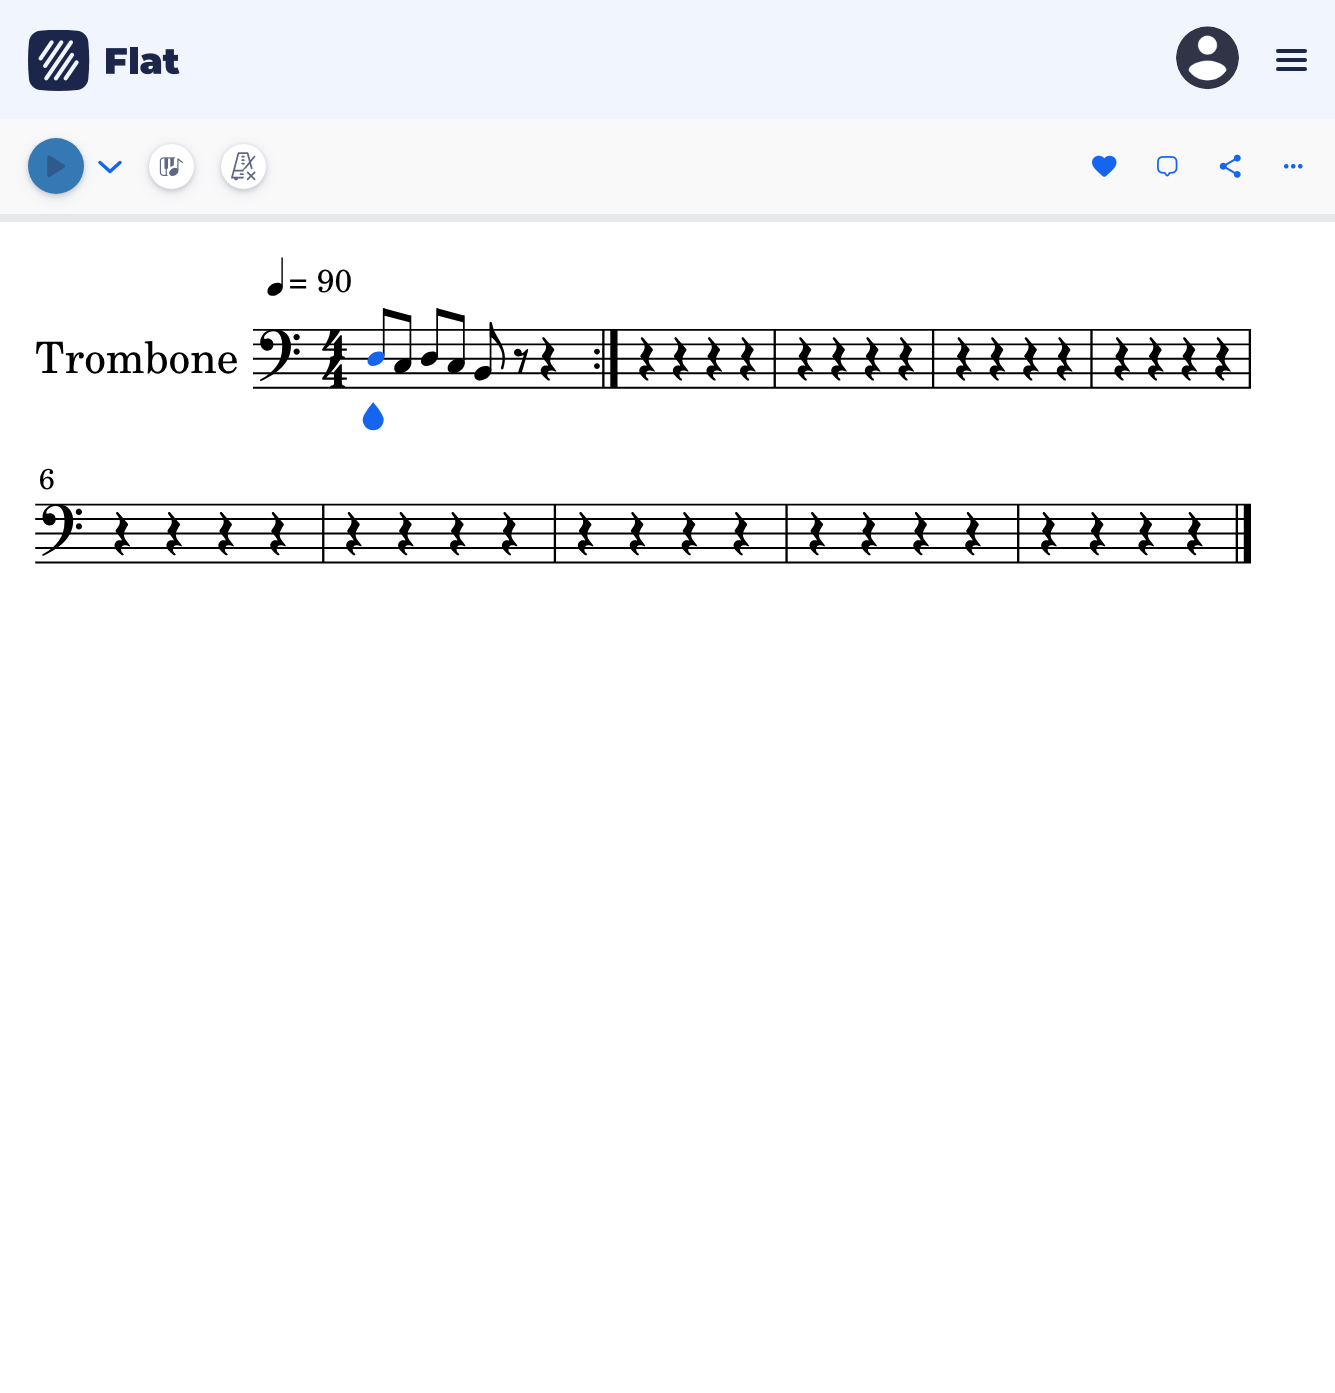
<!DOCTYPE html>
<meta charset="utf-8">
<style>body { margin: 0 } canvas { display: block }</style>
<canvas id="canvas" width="1335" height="1393"></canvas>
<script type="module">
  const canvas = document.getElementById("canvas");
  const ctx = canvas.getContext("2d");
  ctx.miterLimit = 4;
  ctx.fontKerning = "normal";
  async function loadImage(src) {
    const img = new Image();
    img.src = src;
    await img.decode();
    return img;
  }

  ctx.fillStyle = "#ffffff";
  ctx.fillRect(0, 0, 1335, 1393);
  ctx.fillStyle = "#f1f6fe";
  ctx.fillRect(0, 0, 1335, 119);
  ctx.drawImage(await loadImage("img1.png"), 28, 30, 152, 61);
  ctx.fillStyle = "#ffffff";
  ctx.beginPath();
  ctx.arc(1207.5, 57.5, 31.5, 0, Math.PI * 2);
  ctx.fill();
  ctx.drawImage(await loadImage("img2.png"), 1176, 26, 63, 64);
  ctx.fillStyle = "#1c264a";
  ctx.beginPath();
  ctx.roundRect(1276, 49, 31, 4, 2);
  ctx.fill();
  ctx.beginPath();
  ctx.roundRect(1276, 58, 31, 4, 2);
  ctx.fill();
  ctx.beginPath();
  ctx.roundRect(1276, 67, 31, 4, 2);
  ctx.fill();
  ctx.fillStyle = "#f9f9fa";
  ctx.fillRect(0, 119, 1335, 95);
  ctx.fillStyle = "rgba(40, 48, 79, 0.2)";
  ctx.filter = "blur(2.5px)";
  ctx.beginPath();
  ctx.roundRect(28, 140, 56, 56, 28);
  ctx.fill();
  ctx.filter = "none";
  ctx.fillStyle = "rgba(40, 48, 79, 0.1)";
  ctx.filter = "blur(7px)";
  ctx.beginPath();
  ctx.roundRect(28, 142, 56, 56, 28);
  ctx.fill();
  ctx.filter = "none";
  ctx.fillStyle = "#3579b4";
  ctx.beginPath();
  ctx.arc(56, 166, 28, 0, Math.PI * 2);
  ctx.fill();
  ctx.drawImage(await loadImage("img3.png"), 47, 155, 18, 22);
  ctx.beginPath();
  ctx.moveTo(100, 162.5);
  ctx.lineTo(110, 171.5);
  ctx.lineTo(120, 162.5);
  ctx.strokeStyle = "#1565ef";
  ctx.lineWidth = 3.5;
  ctx.lineCap = "round";
  ctx.lineJoin = "round";
  ctx.stroke();
  ctx.fillStyle = "rgba(40, 48, 79, 0.2)";
  ctx.filter = "blur(2.5px)";
  ctx.beginPath();
  ctx.roundRect(149, 145, 45, 46, 22.5);
  ctx.fill();
  ctx.filter = "none";
  ctx.fillStyle = "rgba(40, 48, 79, 0.1)";
  ctx.filter = "blur(7px)";
  ctx.beginPath();
  ctx.roundRect(149, 147, 45, 46, 22.5);
  ctx.fill();
  ctx.filter = "none";
  ctx.fillStyle = "#ffffff";
  ctx.beginPath();
  ctx.arc(171.5, 166.5, 22.5, 0, Math.PI * 2);
  ctx.fill();
  ctx.drawImage(await loadImage("img4.png"), 159, 157, 24, 19);
  ctx.fillStyle = "rgba(40, 48, 79, 0.2)";
  ctx.filter = "blur(2.5px)";
  ctx.beginPath();
  ctx.roundRect(221, 145, 45, 46, 22.5);
  ctx.fill();
  ctx.filter = "none";
  ctx.fillStyle = "rgba(40, 48, 79, 0.1)";
  ctx.filter = "blur(7px)";
  ctx.beginPath();
  ctx.roundRect(221, 147, 45, 46, 22.5);
  ctx.fill();
  ctx.filter = "none";
  ctx.fillStyle = "#ffffff";
  ctx.beginPath();
  ctx.arc(243.5, 166.5, 22.5, 0, Math.PI * 2);
  ctx.fill();
  ctx.drawImage(await loadImage("img5.png"), 231, 152, 25, 29);
  ctx.drawImage(await loadImage("img6.png"), 1092, 155, 25, 22);
  ctx.drawImage(await loadImage("img7.png"), 1157, 156, 21, 21);
  ctx.drawImage(await loadImage("img8.png"), 1219, 154, 22, 24);
  ctx.drawImage(await loadImage("img9.png"), 1283, 163, 20, 6);
  ctx.fillStyle = "#e7e8ec";
  ctx.fillRect(0, 214, 1335, 8);
  ctx.drawImage(await loadImage("img10.png"), 36, 257, 1216, 174);
  ctx.drawImage(await loadImage("img11.png"), 35, 468, 1217, 96);
</script>
